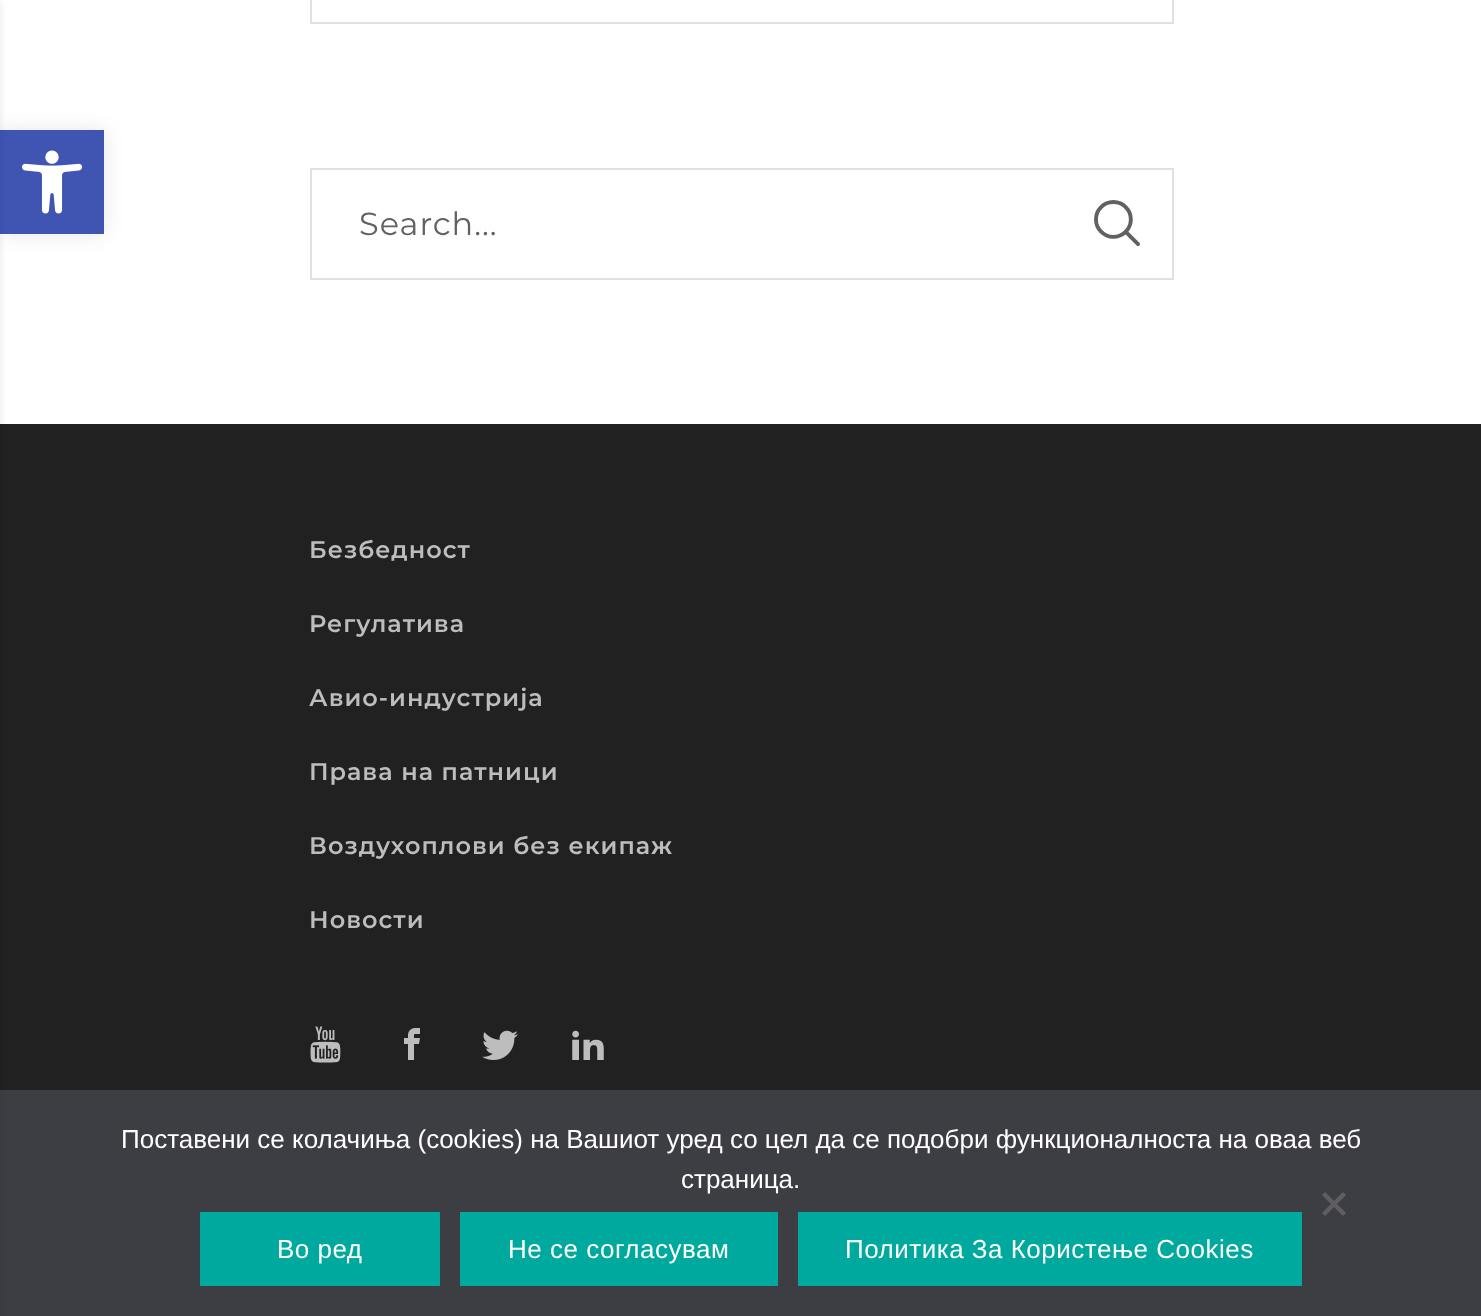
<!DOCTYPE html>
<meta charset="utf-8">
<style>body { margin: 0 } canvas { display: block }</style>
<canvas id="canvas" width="1481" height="1316"></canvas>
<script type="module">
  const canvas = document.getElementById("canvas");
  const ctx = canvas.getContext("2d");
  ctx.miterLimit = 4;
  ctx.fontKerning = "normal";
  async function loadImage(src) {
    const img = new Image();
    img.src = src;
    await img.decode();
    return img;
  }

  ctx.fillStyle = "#ffffff";
  ctx.fillRect(0, 0, 1481, 1316);
  ctx.fillStyle = "rgba(0, 0, 0, 0.1)";
  ctx.filter = "blur(10px)";
  ctx.beginPath();
  ctx.rect(0, 130, 104, 104);
  ctx.fill();
  ctx.filter = "none";
  ctx.fillStyle = "#4054b2";
  ctx.fillRect(0, 130, 104, 104);
  ctx.drawImage(await loadImage("img1.png"), 22, 150, 61, 64);
  ctx.fillStyle = "#212121";
  ctx.fillRect(0, 424, 1481, 666);
  ctx.fillStyle = "#3d3d44";
  ctx.fillRect(0, 1090, 1481, 226);
  ctx.fillStyle = "rgba(0, 0, 0, 0.1)";
  ctx.filter = "blur(3px)";
  ctx.beginPath();
  ctx.rect(-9, 2, 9, 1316);
  ctx.fill();
  ctx.filter = "none";
  ctx.strokeStyle = "#e0e0e0";
  ctx.lineWidth = 2;
  ctx.strokeRect(311, -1, 862, 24);
  ctx.strokeRect(311, 169, 862, 110);
  ctx.letterSpacing = "1px";
  ctx.font = "32px Montserrat";
  ctx.fillStyle = "#616161";
  ctx.fillText("Search...", 359, 235);
  ctx.font = "48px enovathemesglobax";
  ctx.fillText("꤁", 1093, 244);
  ctx.font = "600 24px Montserrat";
  ctx.fillStyle = "#bdbdbd";
  ctx.fillText("Безбедност", 309, 558);
  ctx.fillText("Регулатива", 309, 632);
  ctx.fillText("Авио-индустрија", 309, 706);
  ctx.fillText("Права на патници", 309, 780);
  ctx.fillText("Воздухоплови без екипаж", 309, 854);
  ctx.fillText("Новости", 309, 928);
  ctx.drawImage(await loadImage("img2.png"), 310, 1026, 31, 37);
  ctx.drawImage(await loadImage("img3.png"), 404, 1028, 16, 32);
  ctx.drawImage(await loadImage("img4.png"), 482, 1030, 36, 30);
  ctx.drawImage(await loadImage("img5.png"), 572, 1030, 32, 30);
  ctx.letterSpacing = "0px";
  ctx.font = "26px Liberation Sans";
  ctx.fillStyle = "#ffffff";
  ctx.fillText("Поставени се колачиња (cookies) на Вашиот уред со цел да се подобри функционалноста на оваа веб", 121, 1148);
  ctx.fillText("страница.", 681, 1188);
  ctx.fillStyle = "#5f5f62";
  ctx.beginPath();
  ctx.moveTo(1343, 1192);
  ctx.lineTo(1346, 1195);
  ctx.lineTo(1325, 1216);
  ctx.lineTo(1322, 1213);
  ctx.closePath();
  ctx.fill();
  ctx.beginPath();
  ctx.moveTo(1322, 1195);
  ctx.lineTo(1325, 1192);
  ctx.lineTo(1346, 1213);
  ctx.lineTo(1343, 1216);
  ctx.closePath();
  ctx.fill();
  ctx.fillStyle = "#00a99d";
  ctx.fillRect(200, 1212, 240, 74);
  ctx.letterSpacing = "0.5px";
  ctx.fillStyle = "#ffffff";
  ctx.fillText("Во ред", 277, 1258);
  ctx.fillStyle = "#00a99d";
  ctx.fillRect(460, 1212, 318, 74);
  ctx.fillStyle = "#ffffff";
  ctx.fillText("Не се согласувам", 508, 1258);
  ctx.fillStyle = "#00a99d";
  ctx.fillRect(798, 1212, 504, 74);
  ctx.fillStyle = "#ffffff";
  ctx.fillText("Политика За Користење Cookies", 845, 1258);
</script>
